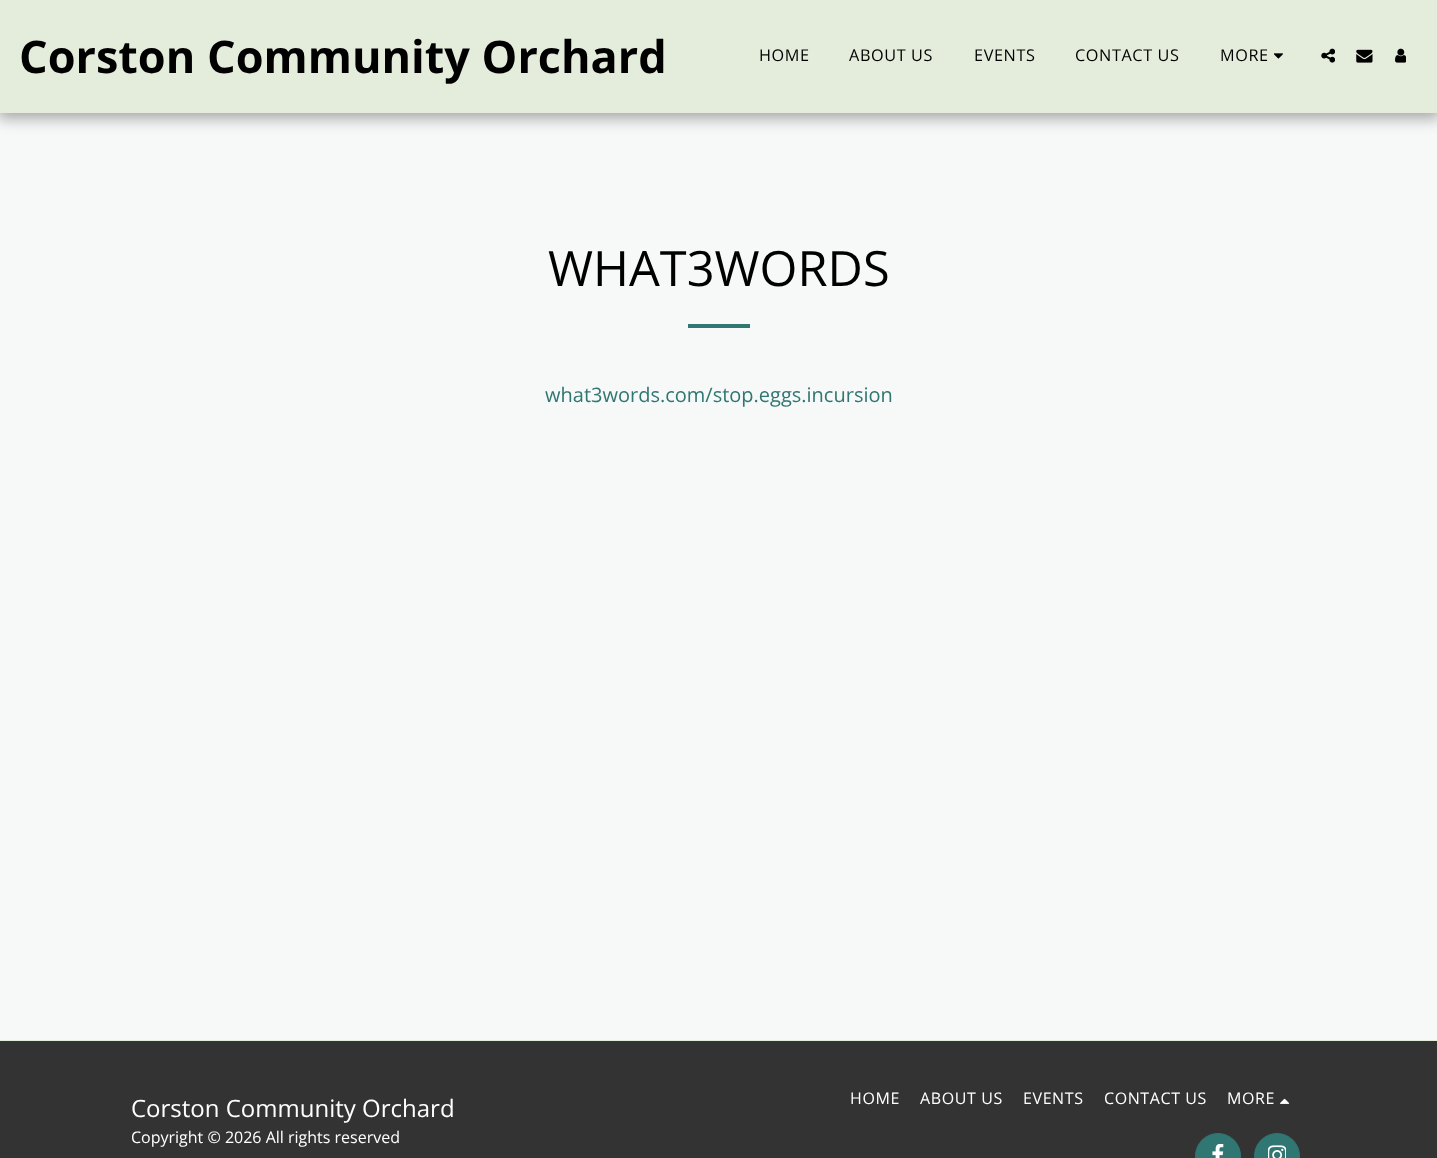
<!DOCTYPE html>
<meta charset="utf-8">
<style>body { margin: 0 } canvas { display: block }</style>
<canvas id="canvas" width="1437" height="1158"></canvas>
<script type="module">
  const canvas = document.getElementById("canvas");
  const ctx = canvas.getContext("2d");
  ctx.miterLimit = 4;
  ctx.fontKerning = "normal";
  async function loadImage(src) {
    const img = new Image();
    img.src = src;
    await img.decode();
    return img;
  }

  ctx.fillStyle = "#f7f9f8";
  ctx.fillRect(0, 0, 1437, 1158);
  ctx.fillStyle = "rgba(0, 0, 0, 0.35)";
  ctx.filter = "blur(7.5px)";
  ctx.beginPath();
  ctx.rect(-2, 0, 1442, 118);
  ctx.fill();
  ctx.filter = "none";
  ctx.fillStyle = "#e4eddb";
  ctx.fillRect(0, 0, 1437, 113);
  ctx.font = "bold 45px Open Sans";
  ctx.fillStyle = "#000000";
  ctx.fillText("Corston Community Orchard", 19, 73);
  ctx.letterSpacing = "0.6px";
  ctx.font = "16.25px Open Sans";
  ctx.fillText("HOME", 759, 61);
  ctx.fillText("ABOUT US", 849, 61);
  ctx.fillText("EVENTS", 974, 61);
  ctx.fillText("CONTACT US", 1075, 61);
  ctx.fillText("MORE", 1220, 61);
  ctx.drawImage(await loadImage("img1.png"), 1274, 53, 9, 6);
  ctx.drawImage(await loadImage("img2.png"), 1321, 48, 14, 15);
  ctx.drawImage(await loadImage("img3.png"), 1356, 49, 17, 14);
  ctx.drawImage(await loadImage("img4.png"), 1395, 48, 11, 15);
  ctx.letterSpacing = "0px";
  ctx.font = "48.75px Open Sans";
  ctx.fillText("WHAT3WORDS", 548, 286);
  ctx.fillStyle = "#307672";
  ctx.fillRect(688, 324, 62, 4);
  ctx.font = "20px Open Sans";
  ctx.fillText("what3words.com/stop.eggs.incursion", 545, 402);
  ctx.fillStyle = "#333333";
  ctx.fillRect(0, 1041, 1437, 117);
  ctx.fillStyle = "#e4eddb";
  ctx.fillRect(0, 1040, 1437, 1);
  ctx.font = "24px Open Sans";
  ctx.fillStyle = "#ffffff";
  ctx.fillText("Corston Community Orchard", 131, 1117);
  ctx.font = "16px Open Sans";
  ctx.fillText("Copyright © 2026 All rights reserved", 131, 1143);
  ctx.letterSpacing = "0.6px";
  ctx.fillText("HOME", 850, 1104);
  ctx.fillText("ABOUT US", 920, 1104);
  ctx.fillText("EVENTS", 1023, 1104);
  ctx.fillText("CONTACT US", 1104, 1104);
  ctx.fillText("MORE", 1227, 1104);
  ctx.drawImage(await loadImage("img5.png"), 1280, 1098, 10, 6);
  ctx.fillStyle = "#307672";
  ctx.beginPath();
  ctx.arc(1218, 1156, 22.5, 0, Math.PI * 2);
  ctx.fill();
  ctx.strokeStyle = "#307672";
  ctx.stroke();
  ctx.drawImage(await loadImage("img6.png"), 1212, 1144, 12, 14);
  ctx.beginPath();
  ctx.arc(1277, 1156, 22.5, 0, Math.PI * 2);
  ctx.fill();
  ctx.stroke();
  ctx.drawImage(await loadImage("img7.png"), 1268, 1145, 18, 13);
</script>
